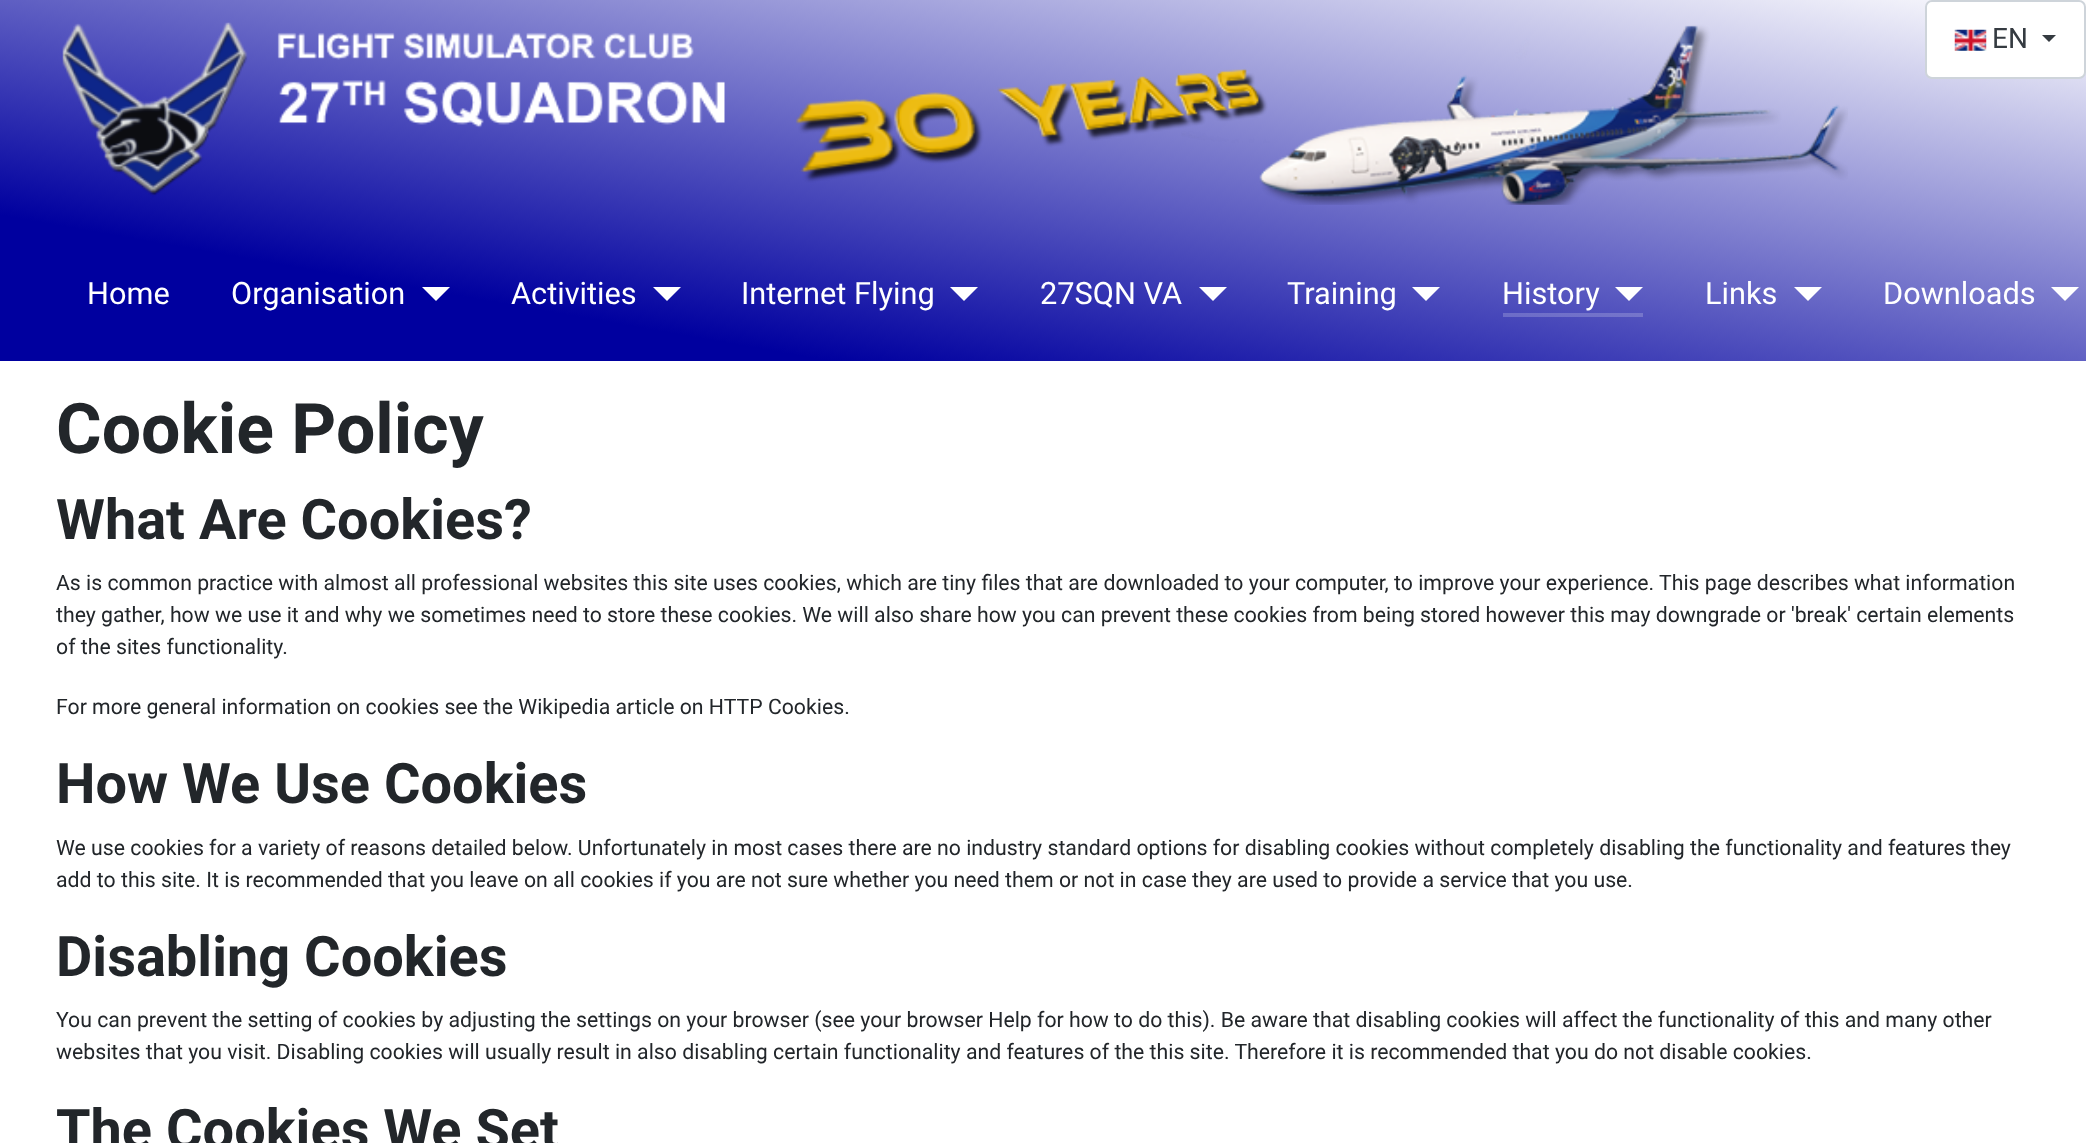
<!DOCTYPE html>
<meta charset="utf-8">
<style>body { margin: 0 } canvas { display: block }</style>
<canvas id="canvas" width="2086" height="1143"></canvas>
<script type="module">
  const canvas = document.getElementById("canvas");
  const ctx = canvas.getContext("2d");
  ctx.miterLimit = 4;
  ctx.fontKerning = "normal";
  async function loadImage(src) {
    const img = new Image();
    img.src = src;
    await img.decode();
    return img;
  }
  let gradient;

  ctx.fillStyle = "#ffffff";
  ctx.fillRect(0, 0, 2086, 1143);
  gradient = ctx.createLinearGradient(1105, -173, 981, 533);
  gradient.addColorStop(0, "#ffffff");
  gradient.addColorStop(0.8, "#00009f");
  ctx.fillStyle = gradient;
  ctx.fillRect(0, 0, 2086, 361);
  gradient = ctx.createLinearGradient(1105, -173, 981, 533);
  gradient.addColorStop(0, "#ffffff");
  gradient.addColorStop(0.8, "#3333b2");
  ctx.fillStyle = gradient;
  ctx.fillRect(1503, 313, 140, 4);
  ctx.drawImage(await loadImage("img1.png"), 62, 22, 1786, 183);
  ctx.fillStyle = "#ffffff";
  ctx.beginPath();
  ctx.roundRect(1926, 1, 159, 77, 6);
  ctx.fill();
  ctx.strokeStyle = "#ced4da";
  ctx.lineWidth = 2;
  ctx.stroke();
  ctx.drawImage(await loadImage("img2.png"), 1954, 29, 33, 22);
  ctx.font = "28px Roboto";
  ctx.fillStyle = "#353b41";
  ctx.fillText("EN", 1992, 48);
  ctx.beginPath();
  ctx.moveTo(2042, 35);
  ctx.lineTo(2056, 35);
  ctx.lineTo(2049, 42);
  ctx.closePath();
  ctx.fill();
  ctx.font = "30.75px Roboto";
  ctx.fillStyle = "#ffffff";
  ctx.fillText("Home", 87, 304);
  ctx.fillText("Organisation", 231, 304);
  ctx.beginPath();
  ctx.moveTo(422, 287);
  ctx.lineTo(450, 287);
  ctx.lineTo(436, 301);
  ctx.closePath();
  ctx.fill();
  ctx.fillText("Activities", 511, 304);
  ctx.beginPath();
  ctx.moveTo(653, 287);
  ctx.lineTo(681, 287);
  ctx.lineTo(667, 301);
  ctx.closePath();
  ctx.fill();
  ctx.fillText("Internet Flying", 741, 304);
  ctx.beginPath();
  ctx.moveTo(950, 287);
  ctx.lineTo(978, 287);
  ctx.lineTo(964, 301);
  ctx.closePath();
  ctx.fill();
  ctx.fillText("27SQN VA", 1040, 304);
  ctx.beginPath();
  ctx.moveTo(1199, 287);
  ctx.lineTo(1227, 287);
  ctx.lineTo(1213, 301);
  ctx.closePath();
  ctx.fill();
  ctx.fillText("Training", 1287, 304);
  ctx.beginPath();
  ctx.moveTo(1412, 287);
  ctx.lineTo(1440, 287);
  ctx.lineTo(1426, 301);
  ctx.closePath();
  ctx.fill();
  ctx.fillText("History", 1502, 304);
  ctx.beginPath();
  ctx.moveTo(1615, 287);
  ctx.lineTo(1643, 287);
  ctx.lineTo(1629, 301);
  ctx.closePath();
  ctx.fill();
  ctx.fillText("Links", 1705, 304);
  ctx.beginPath();
  ctx.moveTo(1794, 287);
  ctx.lineTo(1822, 287);
  ctx.lineTo(1808, 301);
  ctx.closePath();
  ctx.fill();
  ctx.fillText("Downloads", 1883, 304);
  ctx.beginPath();
  ctx.moveTo(2051, 287);
  ctx.lineTo(2079, 287);
  ctx.lineTo(2065, 301);
  ctx.closePath();
  ctx.fill();
  ctx.font = "bold 69.75px Roboto";
  ctx.fillStyle = "#22262a";
  ctx.fillText("Cookie Policy", 56, 453);
  ctx.font = "bold 55.9px Roboto";
  ctx.fillText("What Are Cookies?", 56, 539);
  ctx.font = "21.28px Roboto";
  ctx.fillText("As is common practice with almost all professional websites this site uses cookies, which are tiny files that are downloaded to your computer, to improve your experience. This page describes what information", 56, 590);
  ctx.fillText("they gather, how we use it and why we sometimes need to store these cookies. We will also share how you can prevent these cookies from being stored however this may downgrade or 'break' certain elements", 56, 622);
  ctx.fillText("of the sites functionality.", 56, 654);
  ctx.fillText("For more general information on cookies see the Wikipedia article on HTTP Cookies.", 56, 714);
  ctx.font = "bold 55.9px Roboto";
  ctx.fillText("How We Use Cookies", 56, 803);
  ctx.font = "21.28px Roboto";
  ctx.fillText("We use cookies for a variety of reasons detailed below. Unfortunately in most cases there are no industry standard options for disabling cookies without completely disabling the functionality and features they", 56, 855);
  ctx.fillText("add to this site. It is recommended that you leave on all cookies if you are not sure whether you need them or not in case they are used to provide a service that you use.", 56, 887);
  ctx.font = "bold 55.9px Roboto";
  ctx.fillText("Disabling Cookies", 56, 976);
  ctx.font = "21.28px Roboto";
  ctx.fillText("You can prevent the setting of cookies by adjusting the settings on your browser (see your browser Help for how to do this). Be aware that disabling cookies will affect the functionality of this and many other", 56, 1027);
  ctx.fillText("websites that you visit. Disabling cookies will usually result in also disabling certain functionality and features of the this site. Therefore it is recommended that you do not disable cookies.", 56, 1059);
  ctx.font = "bold 55.9px Roboto";
  ctx.fillText("The Cookies We Set", 56, 1149);
</script>
